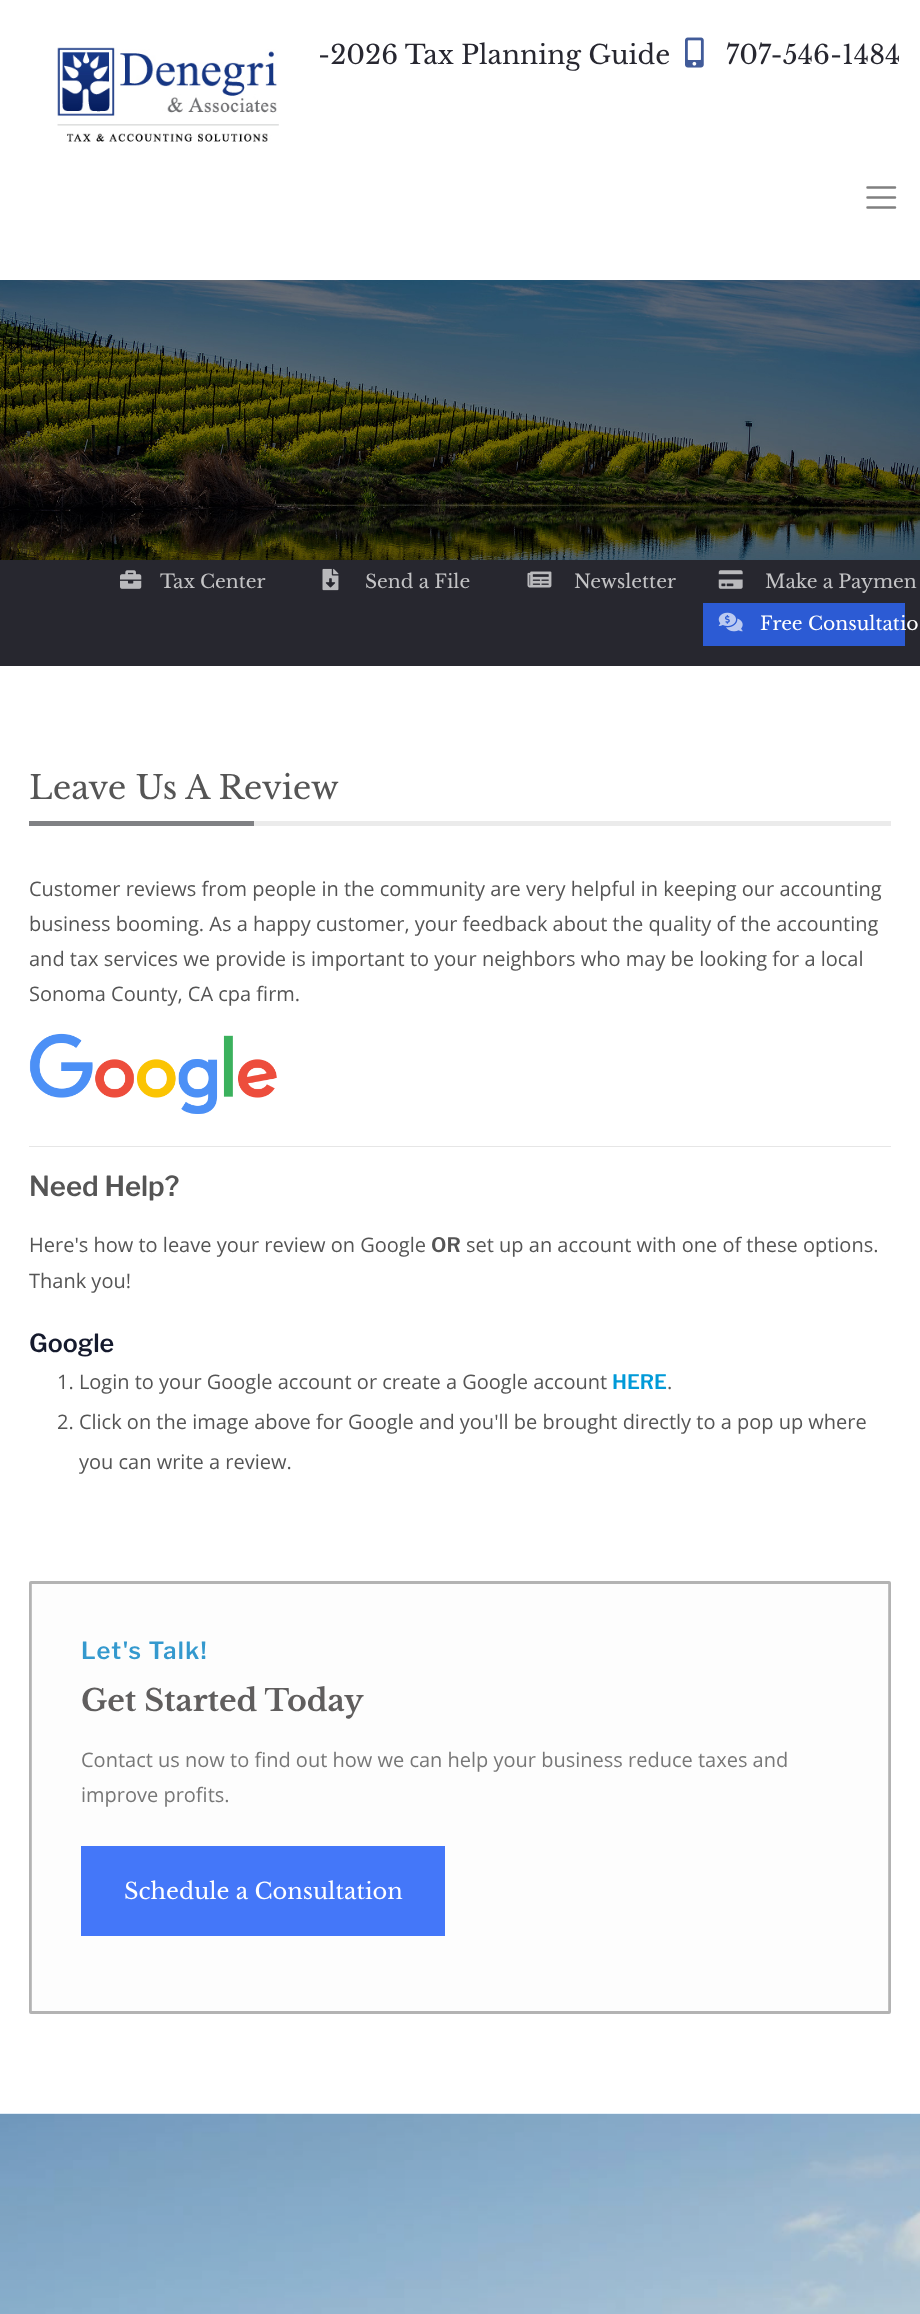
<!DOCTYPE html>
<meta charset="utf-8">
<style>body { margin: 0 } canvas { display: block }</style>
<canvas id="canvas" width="920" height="2314"></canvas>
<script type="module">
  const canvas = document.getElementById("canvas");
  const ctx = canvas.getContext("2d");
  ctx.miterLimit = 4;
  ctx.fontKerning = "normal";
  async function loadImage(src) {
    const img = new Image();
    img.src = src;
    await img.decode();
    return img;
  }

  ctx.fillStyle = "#ffffff";
  ctx.fillRect(0, 0, 920, 2314);
  ctx.font = "26.25px Libre Baskerville";
  ctx.fillStyle = "#272730";
  ctx.fillText("-2026 Tax Planning Guide", 318, 64);
  ctx.drawImage(await loadImage("img1.png"), 685, 37, 19, 31);
  ctx.fillText("707-546-1484", 726, 64);
  ctx.drawImage(await loadImage("img2.png"), 57, 47, 222, 95);
  ctx.beginPath();
  ctx.moveTo(867.5, 187.5);
  ctx.lineTo(895, 187.5);
  ctx.moveTo(867.5, 197.5);
  ctx.lineTo(895, 197.5);
  ctx.moveTo(867.5, 207.5);
  ctx.lineTo(895, 207.5);
  ctx.strokeStyle = "#808080";
  ctx.lineWidth = 2.5;
  ctx.lineCap = "round";
  ctx.stroke();
  ctx.drawImage(await loadImage("img3.png"), 0, 280, 920, 280);
  ctx.fillStyle = "#27272f";
  ctx.fillRect(0, 560, 920, 106);
  ctx.drawImage(await loadImage("img4.png"), 120, 570, 22, 19);
  ctx.font = "18.75px Libre Baskerville";
  ctx.fillStyle = "#c3c3c5";
  ctx.fillText("Tax Center", 160, 588);
  ctx.drawImage(await loadImage("img5.png"), 322, 568, 17, 23);
  ctx.fillText("Send a File", 365, 588);
  ctx.drawImage(await loadImage("img6.png"), 527, 571, 25, 17);
  ctx.fillText("Newsletter", 574, 588);
  ctx.drawImage(await loadImage("img7.png"), 718, 570, 25, 19);
  ctx.fillText("Make a Paymen", 765, 588);
  ctx.fillStyle = "#2c5bd4";
  ctx.fillRect(703, 603, 202, 43);
  ctx.drawImage(await loadImage("img8.png"), 718, 612, 25, 20);
  ctx.fillStyle = "#ffffff";
  ctx.fillText("Free Consultatio", 760, 630);
  ctx.font = "32.5px Libre Baskerville";
  ctx.fillStyle = "#555555";
  ctx.fillText("Leave Us A Review", 29, 799);
  ctx.fillStyle = "#808184";
  ctx.fillRect(29, 821, 225, 5);
  ctx.fillStyle = "#ebebeb";
  ctx.fillRect(254, 821, 637, 5);
  ctx.font = "20px Open Sans";
  ctx.fillStyle = "#555555";
  ctx.fillText("Customer reviews from people in the community are very helpful in keeping our accounting", 29, 896);
  ctx.fillText("business booming. As a happy customer, your feedback about the quality of the accounting", 29, 931);
  ctx.fillText("and tax services we provide is important to your neighbors who may be looking for a local", 29, 966);
  ctx.fillText("Sonoma County, CA cpa firm.", 29, 1001);
  ctx.drawImage(await loadImage("img9.png"), 29, 1033, 248, 81);
  ctx.fillStyle = "#e6e6e6";
  ctx.fillRect(29, 1146, 862, 1);
  ctx.font = "600 27.5px Libre Franklin";
  ctx.fillStyle = "#555555";
  ctx.fillText("Need Help?", 29, 1196);
  ctx.font = "20px Open Sans";
  ctx.fillText("Here's how to leave your review on Google", 29, 1252);
  ctx.font = "600 20px Libre Franklin";
  ctx.fillText("OR", 431, 1252);
  ctx.font = "20px Open Sans";
  ctx.fillText("set up an account with one of these options.", 466, 1252);
  ctx.fillText("Thank you!", 29, 1288);
  ctx.font = "600 25px Libre Franklin";
  ctx.fillStyle = "#151a2d";
  ctx.fillText("Google", 29, 1352);
  ctx.font = "20px Open Sans";
  ctx.fillStyle = "#555555";
  ctx.fillText("1. Login to your Google account or create a Google account", 57, 1389);
  ctx.font = "600 20px Libre Franklin";
  ctx.fillStyle = "#009ad8";
  ctx.fillText("HERE", 612, 1389);
  ctx.font = "20px Open Sans";
  ctx.fillStyle = "#555555";
  ctx.fillText(".", 667, 1389);
  ctx.fillText("2. Click on the image above for Google and you'll be brought directly to a pop up where", 57, 1429);
  ctx.fillText("you can write a review.", 79, 1469);
  ctx.beginPath();
  ctx.roundRect(30.5, 1582.5, 859, 430, 0.5);
  ctx.strokeStyle = "#b3b3b3";
  ctx.lineWidth = 3;
  ctx.stroke();
  ctx.letterSpacing = "1.25px";
  ctx.font = "600 23.75px Libre Franklin";
  ctx.fillStyle = "#0080c4";
  ctx.fillText("Let's Talk!", 81, 1659);
  ctx.letterSpacing = "0px";
  ctx.font = "bold 30px Libre Baskerville";
  ctx.fillStyle = "#383636";
  ctx.fillText("Get Started Today", 81, 1711);
  ctx.font = "20px Open Sans";
  ctx.fillStyle = "#555555";
  ctx.fillText("Contact us now to find out how we can help your business reduce taxes and", 81, 1767);
  ctx.fillText("improve profits.", 81, 1802);
  ctx.fillStyle = "rgba(245, 245, 245, 0.21)";
  ctx.fillRect(31, 1584, 858, 427);
  ctx.fillStyle = "#4477f9";
  ctx.fillRect(81, 1846, 364, 90);
  ctx.font = "22.5px Libre Baskerville";
  ctx.fillStyle = "#ffffff";
  ctx.fillText("Schedule a Consultation", 124, 1899);
  ctx.drawImage(await loadImage("img10.png"), 0, 2113, 920, 201);
</script>
